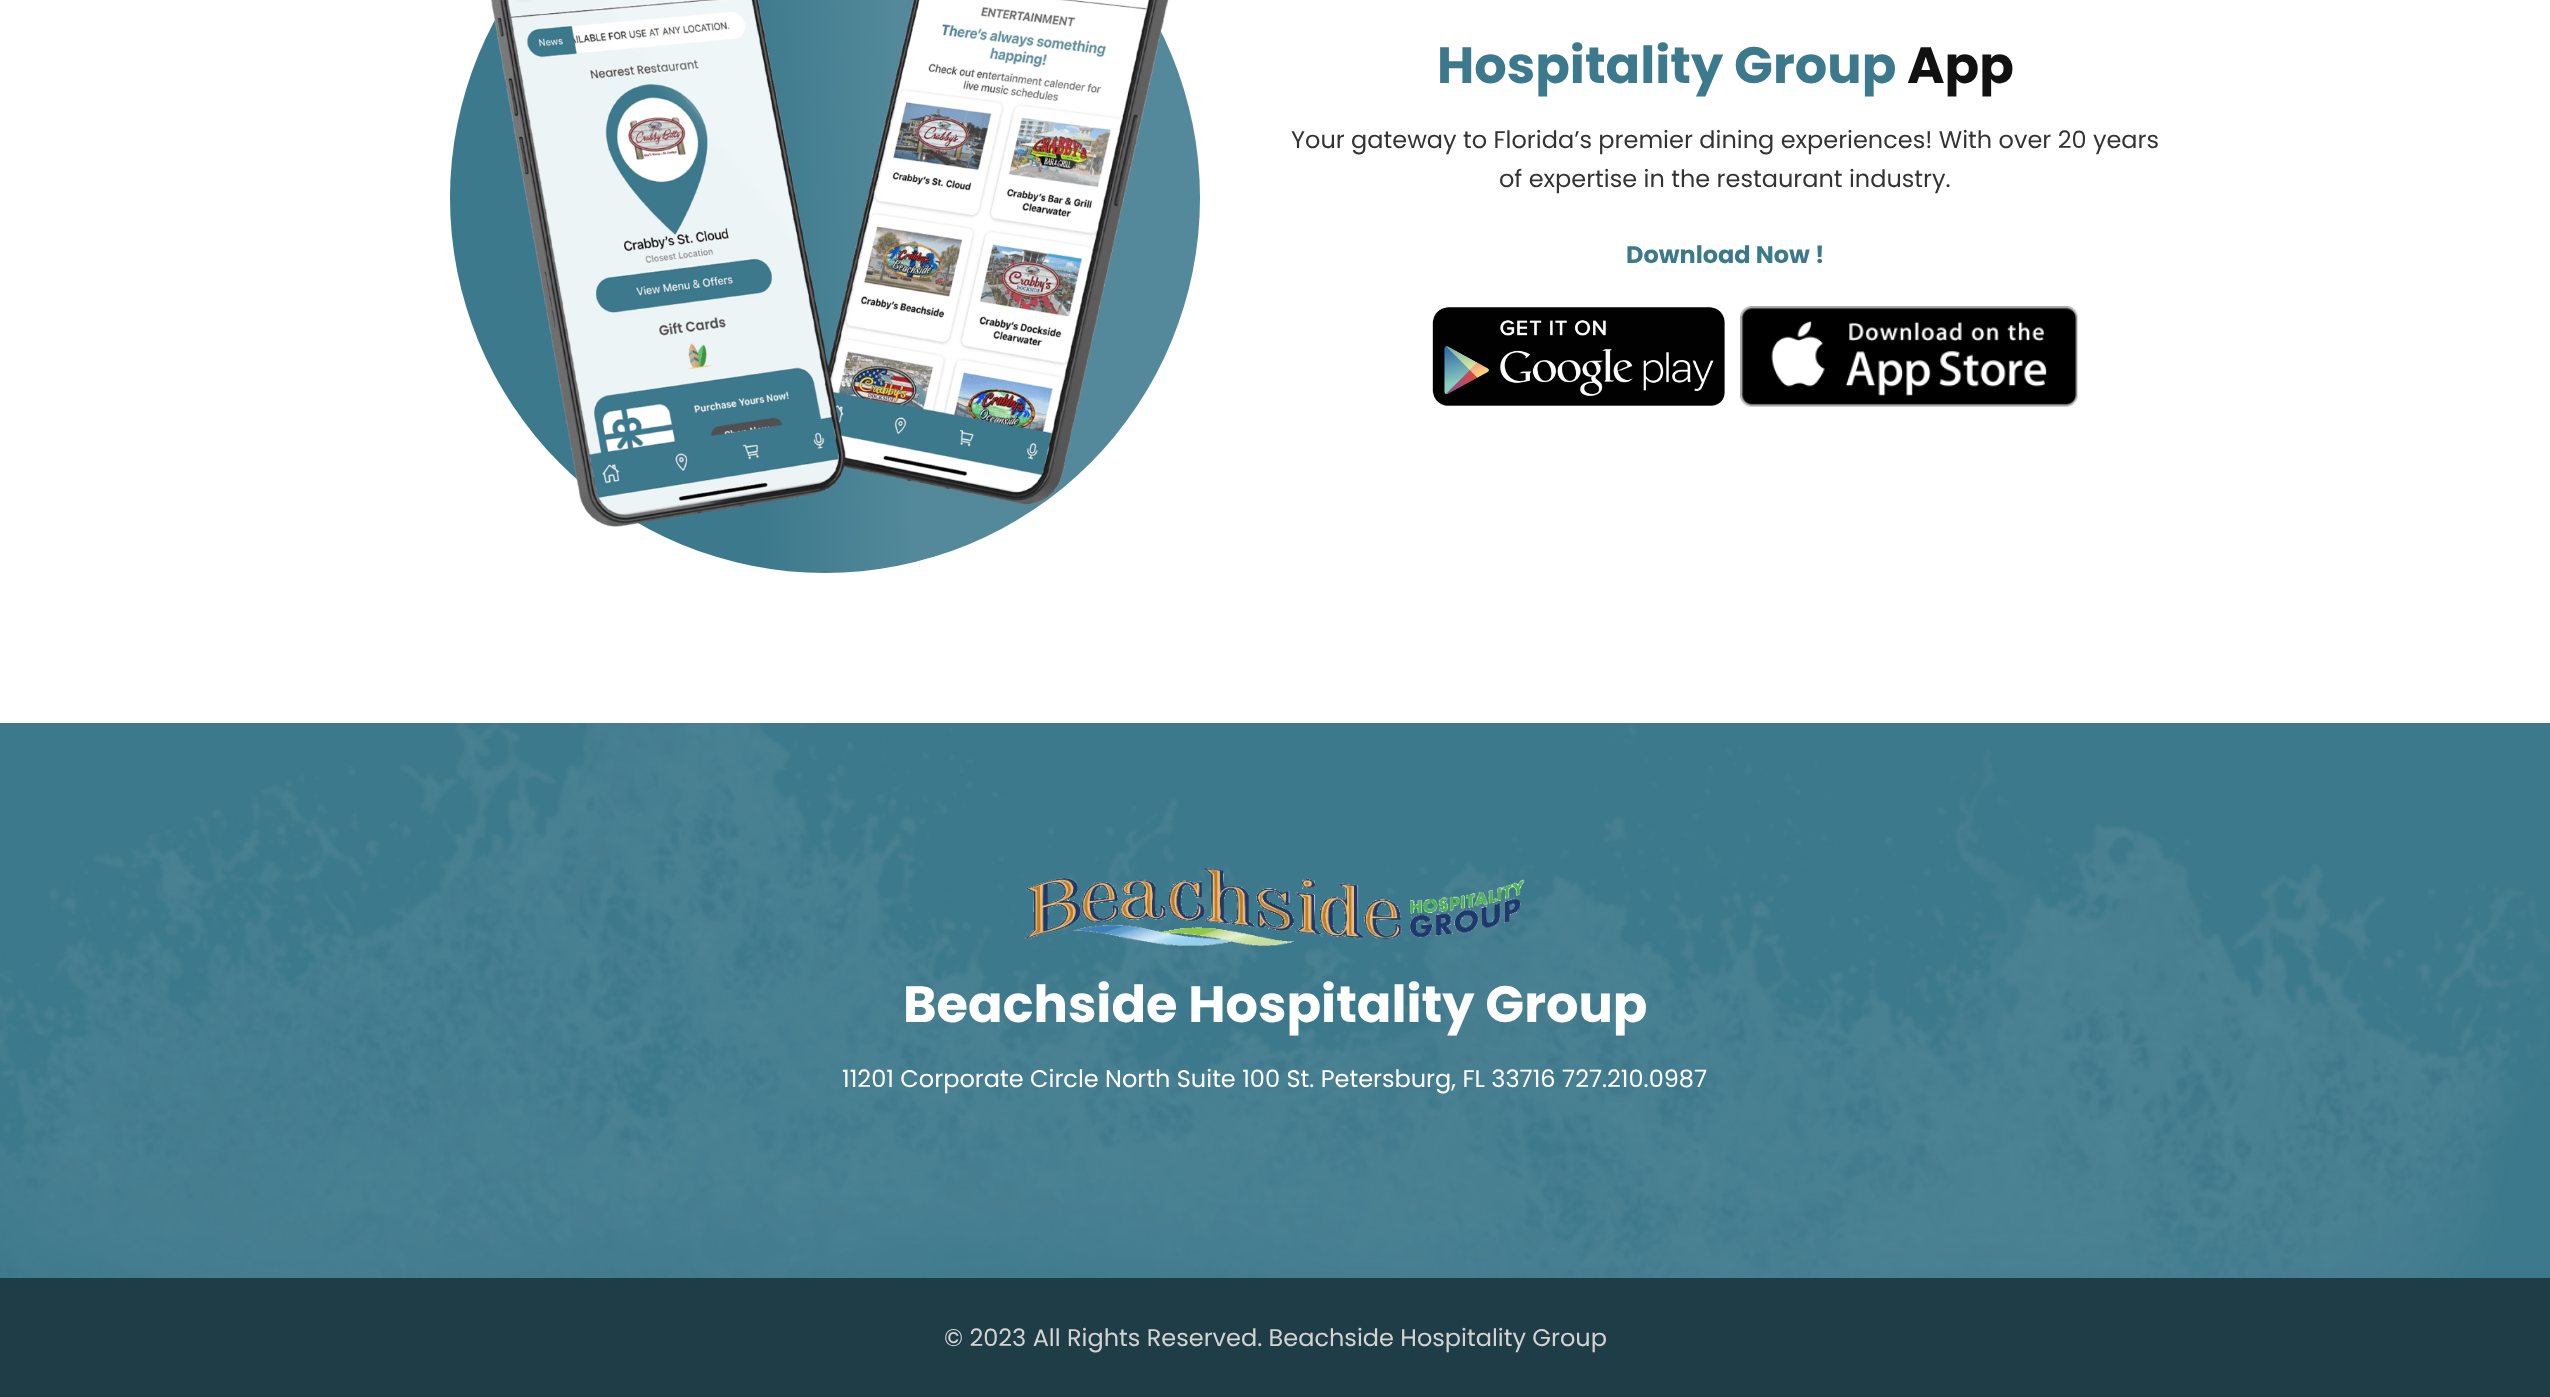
<!DOCTYPE html>
<meta charset="utf-8">
<style>body { margin: 0 } canvas { display: block }</style>
<canvas id="canvas" width="2550" height="1397"></canvas>
<script type="module">
  const canvas = document.getElementById("canvas");
  const ctx = canvas.getContext("2d");
  ctx.miterLimit = 4;
  ctx.fontKerning = "normal";
  async function loadImage(src) {
    const img = new Image();
    img.src = src;
    await img.decode();
    return img;
  }
  let gradient;

  ctx.fillStyle = "#ffffff";
  ctx.fillRect(0, 0, 2550, 1397);
  gradient = ctx.createLinearGradient(437, 212, 1213, 184);
  gradient.addColorStop(0.4, "#3c798c");
  gradient.addColorStop(0.6, "#53899a");
  ctx.fillStyle = gradient;
  ctx.beginPath();
  ctx.arc(825, 198, 375, 0, Math.PI * 2);
  ctx.fill();
  ctx.drawImage(await loadImage("img1.png"), 490, 0, 679, 527);
  ctx.font = "bold 51px Poppins";
  ctx.fillStyle = "#3c798c";
  ctx.fillText("Hospitality Group", 1437, 83);
  ctx.fillStyle = "#111111";
  ctx.fillText("App", 1907, 83);
  ctx.font = "24px Poppins";
  ctx.fillStyle = "#333333";
  ctx.fillText("Your gateway to Florida’s premier dining experiences! With over 20 years", 1291, 148);
  ctx.fillText("of expertise in the restaurant industry.", 1499, 187);
  ctx.font = "bold 24px Poppins";
  ctx.fillStyle = "#3c798c";
  ctx.fillText("Download Now !", 1626, 263);
  ctx.drawImage(await loadImage("img2.png"), 1432, 307, 293, 99);
  ctx.drawImage(await loadImage("img3.png"), 1740, 306, 338, 101);
  ctx.fillRect(0, 723, 2550, 555);
  ctx.drawImage(await loadImage("img4.png"), 0, 723, 2550, 555);
  ctx.drawImage(await loadImage("img5.png"), 1024, 867, 501, 80);
  ctx.font = "bold 51px Poppins";
  ctx.fillStyle = "#ffffff";
  ctx.fillText("Beachside Hospitality Group", 903, 1022);
  ctx.font = "24px Poppins";
  ctx.fillText("11201 Corporate Circle North Suite 100 St. Petersburg, FL 33716 727.210.0987", 842, 1087);
  ctx.fillStyle = "#1f3d47";
  ctx.fillRect(0, 1278, 2550, 119);
  ctx.fillStyle = "#d3d3d3";
  ctx.fillText("© 2023 All Rights Reserved. Beachside Hospitality Group", 944, 1346);
</script>
